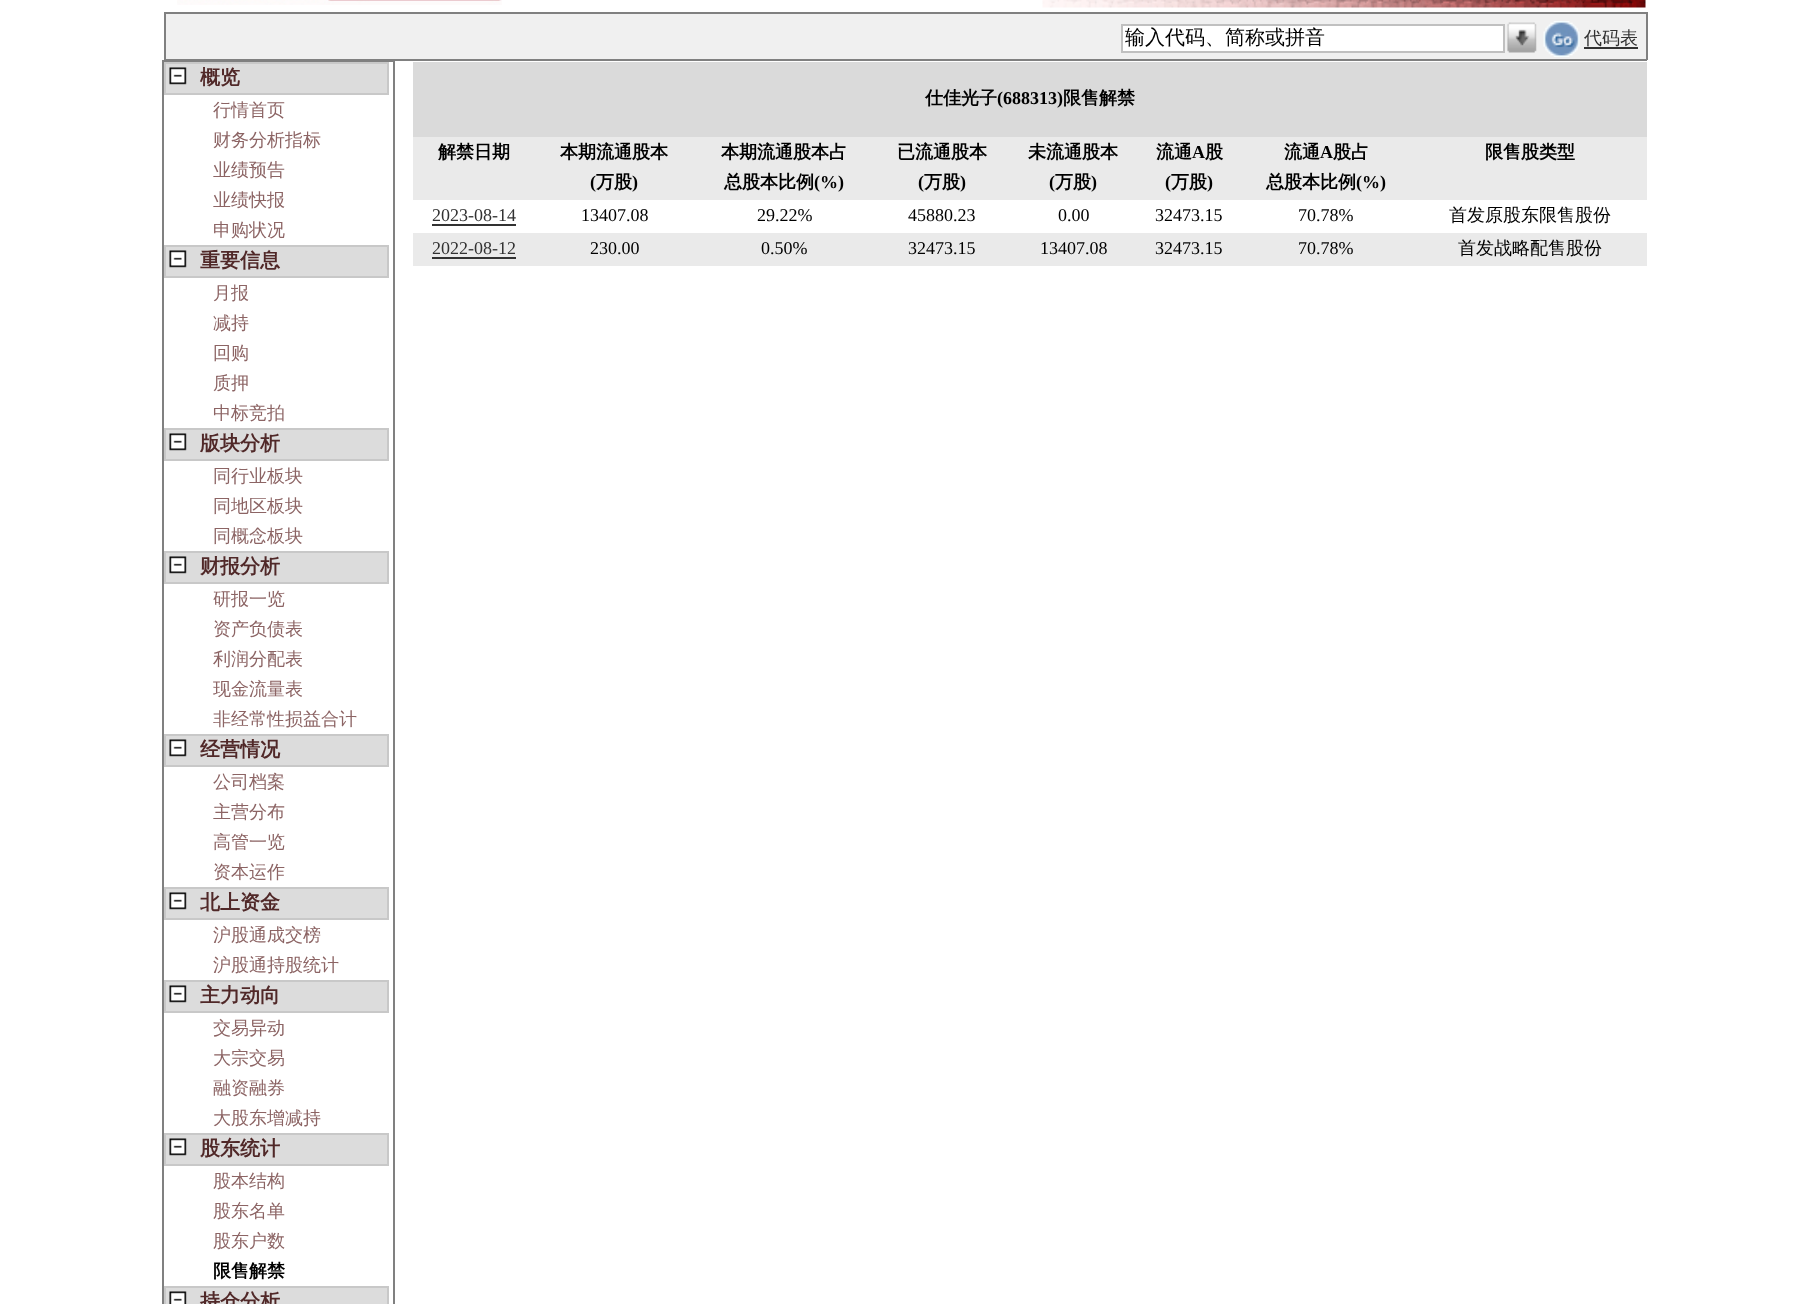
<!DOCTYPE html>
<meta charset="utf-8">
<style>body { margin: 0 } canvas { display: block }</style>
<canvas id="canvas" width="1809" height="1304"></canvas>
<script type="module">
  const canvas = document.getElementById("canvas");
  const ctx = canvas.getContext("2d");
  ctx.miterLimit = 4;
  ctx.fontKerning = "normal";
  async function loadImage(src) {
    const img = new Image();
    img.src = src;
    await img.decode();
    return img;
  }

  ctx.fillStyle = "#ffffff";
  ctx.fillRect(0, 0, 1809, 1304);
  ctx.drawImage(await loadImage("img1.png"), 177, 0, 325, 5);
  ctx.drawImage(await loadImage("img2.png"), 1042, 0, 604, 8);
  ctx.fillStyle = "#f0f0f0";
  ctx.fillRect(166, 14, 1480, 45);
  ctx.fillStyle = "#808080";
  ctx.fillRect(164, 12, 1483, 2);
  ctx.fillRect(1646, 12, 2, 48);
  ctx.fillRect(164, 59, 1483, 2);
  ctx.fillRect(164, 12, 2, 48);
  ctx.fillStyle = "#ffffff";
  ctx.beginPath();
  ctx.rect(1122, 25, 382, 27);
  ctx.fill();
  ctx.strokeStyle = "#c0c0c0";
  ctx.lineWidth = 2;
  ctx.stroke();
  ctx.font = "500 20px WenQuanYi Zen Hei";
  ctx.fillStyle = "#000000";
  ctx.fillText("输入代码、简称或拼音", 1125, 44);
  ctx.drawImage(await loadImage("img3.png"), 1507, 22, 30, 31);
  ctx.drawImage(await loadImage("img4.png"), 1543, 21, 37, 36);
  ctx.font = "500 18px WenQuanYi Zen Hei";
  ctx.fillStyle = "#323232";
  ctx.fillText("代码表", 1584, 44);
  ctx.fillRect(1584, 47, 54, 2);
  ctx.fillStyle = "#808080";
  ctx.fillRect(162, 60, 233, 2);
  ctx.fillRect(393, 60, 2, 1244);
  ctx.fillRect(162, 60, 2, 1244);
  ctx.fillStyle = "#dcdcdc";
  ctx.fillRect(166, 64, 221, 29);
  ctx.drawImage(await loadImage("img5.png"), 169, 67, 18, 18);
  ctx.strokeStyle = "#c8c8c8";
  ctx.strokeRect(165, 63, 223, 31);
  ctx.font = "bold 20px WenQuanYi Zen Hei";
  ctx.fillStyle = "#502828";
  ctx.fillText("概览", 200, 84);
  ctx.font = "500 18px WenQuanYi Zen Hei";
  ctx.fillStyle = "#8c6464";
  ctx.fillText("行情首页", 213, 116);
  ctx.fillText("财务分析指标", 213, 146);
  ctx.fillText("业绩预告", 213, 176);
  ctx.fillText("业绩快报", 213, 206);
  ctx.fillText("申购状况", 213, 236);
  ctx.fillStyle = "#dcdcdc";
  ctx.fillRect(166, 247, 221, 29);
  ctx.drawImage(await loadImage("img5.png"), 169, 250, 18, 18);
  ctx.strokeRect(165, 246, 223, 31);
  ctx.font = "bold 20px WenQuanYi Zen Hei";
  ctx.fillStyle = "#502828";
  ctx.fillText("重要信息", 200, 267);
  ctx.font = "500 18px WenQuanYi Zen Hei";
  ctx.fillStyle = "#8c6464";
  ctx.fillText("月报", 213, 299);
  ctx.fillText("减持", 213, 329);
  ctx.fillText("回购", 213, 359);
  ctx.fillText("质押", 213, 389);
  ctx.fillText("中标竞拍", 213, 419);
  ctx.fillStyle = "#dcdcdc";
  ctx.fillRect(166, 430, 221, 29);
  ctx.drawImage(await loadImage("img5.png"), 169, 433, 18, 18);
  ctx.strokeRect(165, 429, 223, 31);
  ctx.font = "bold 20px WenQuanYi Zen Hei";
  ctx.fillStyle = "#502828";
  ctx.fillText("版块分析", 200, 450);
  ctx.font = "500 18px WenQuanYi Zen Hei";
  ctx.fillStyle = "#8c6464";
  ctx.fillText("同行业板块", 213, 482);
  ctx.fillText("同地区板块", 213, 512);
  ctx.fillText("同概念板块", 213, 542);
  ctx.fillStyle = "#dcdcdc";
  ctx.fillRect(166, 553, 221, 29);
  ctx.drawImage(await loadImage("img5.png"), 169, 556, 18, 18);
  ctx.strokeRect(165, 552, 223, 31);
  ctx.font = "bold 20px WenQuanYi Zen Hei";
  ctx.fillStyle = "#502828";
  ctx.fillText("财报分析", 200, 573);
  ctx.font = "500 18px WenQuanYi Zen Hei";
  ctx.fillStyle = "#8c6464";
  ctx.fillText("研报一览", 213, 605);
  ctx.fillText("资产负债表", 213, 635);
  ctx.fillText("利润分配表", 213, 665);
  ctx.fillText("现金流量表", 213, 695);
  ctx.fillText("非经常性损益合计", 213, 725);
  ctx.fillStyle = "#dcdcdc";
  ctx.fillRect(166, 736, 221, 29);
  ctx.drawImage(await loadImage("img5.png"), 169, 739, 18, 18);
  ctx.strokeRect(165, 735, 223, 31);
  ctx.font = "bold 20px WenQuanYi Zen Hei";
  ctx.fillStyle = "#502828";
  ctx.fillText("经营情况", 200, 756);
  ctx.font = "500 18px WenQuanYi Zen Hei";
  ctx.fillStyle = "#8c6464";
  ctx.fillText("公司档案", 213, 788);
  ctx.fillText("主营分布", 213, 818);
  ctx.fillText("高管一览", 213, 848);
  ctx.fillText("资本运作", 213, 878);
  ctx.fillStyle = "#dcdcdc";
  ctx.fillRect(166, 889, 221, 29);
  ctx.drawImage(await loadImage("img5.png"), 169, 892, 18, 18);
  ctx.strokeRect(165, 888, 223, 31);
  ctx.font = "bold 20px WenQuanYi Zen Hei";
  ctx.fillStyle = "#502828";
  ctx.fillText("北上资金", 200, 909);
  ctx.font = "500 18px WenQuanYi Zen Hei";
  ctx.fillStyle = "#8c6464";
  ctx.fillText("沪股通成交榜", 213, 941);
  ctx.fillText("沪股通持股统计", 213, 971);
  ctx.fillStyle = "#dcdcdc";
  ctx.fillRect(166, 982, 221, 29);
  ctx.drawImage(await loadImage("img5.png"), 169, 985, 18, 18);
  ctx.strokeRect(165, 981, 223, 31);
  ctx.font = "bold 20px WenQuanYi Zen Hei";
  ctx.fillStyle = "#502828";
  ctx.fillText("主力动向", 200, 1002);
  ctx.font = "500 18px WenQuanYi Zen Hei";
  ctx.fillStyle = "#8c6464";
  ctx.fillText("交易异动", 213, 1034);
  ctx.fillText("大宗交易", 213, 1064);
  ctx.fillText("融资融券", 213, 1094);
  ctx.fillText("大股东增减持", 213, 1124);
  ctx.fillStyle = "#dcdcdc";
  ctx.fillRect(166, 1135, 221, 29);
  ctx.drawImage(await loadImage("img5.png"), 169, 1138, 18, 18);
  ctx.strokeRect(165, 1134, 223, 31);
  ctx.font = "bold 20px WenQuanYi Zen Hei";
  ctx.fillStyle = "#502828";
  ctx.fillText("股东统计", 200, 1155);
  ctx.font = "500 18px WenQuanYi Zen Hei";
  ctx.fillStyle = "#8c6464";
  ctx.fillText("股本结构", 213, 1187);
  ctx.fillText("股东名单", 213, 1217);
  ctx.fillText("股东户数", 213, 1247);
  ctx.font = "bold 18px WenQuanYi Zen Hei";
  ctx.fillStyle = "#000000";
  ctx.fillText("限售解禁", 213, 1277);
  ctx.fillStyle = "#dcdcdc";
  ctx.fillRect(166, 1288, 221, 16);
  ctx.drawImage(await loadImage("img6.png"), 169, 1291, 18, 13);
  ctx.strokeRect(165, 1287, 223, 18);
  ctx.font = "bold 20px WenQuanYi Zen Hei";
  ctx.fillStyle = "#502828";
  ctx.fillText("持仓分析", 200, 1308);
  ctx.fillStyle = "#dadada";
  ctx.fillRect(413, 62, 1234, 75);
  ctx.font = "bold 18px WenQuanYi Zen Hei";
  ctx.fillStyle = "#000000";
  ctx.fillText("仕佳光子", 925, 104);
  ctx.font = "bold 18px Liberation Serif";
  ctx.fillText("(688313)", 997, 104);
  ctx.font = "bold 18px WenQuanYi Zen Hei";
  ctx.fillText("限售解禁", 1063, 104);
  ctx.fillStyle = "#eaeaea";
  ctx.fillRect(413, 137, 1234, 63);
  ctx.fillStyle = "#000000";
  ctx.fillText("解禁日期", 438, 158);
  ctx.fillText("本期流通股本", 560, 158);
  ctx.font = "bold 18px Liberation Serif";
  ctx.fillText("(", 590, 188);
  ctx.font = "bold 18px WenQuanYi Zen Hei";
  ctx.fillText("万股", 596, 188);
  ctx.font = "bold 18px Liberation Serif";
  ctx.fillText(")", 632, 188);
  ctx.font = "bold 18px WenQuanYi Zen Hei";
  ctx.fillText("本期流通股本占", 721, 158);
  ctx.fillText("总股本比例", 724, 188);
  ctx.font = "bold 18px Liberation Serif";
  ctx.fillText("(%)", 814, 188);
  ctx.font = "bold 18px WenQuanYi Zen Hei";
  ctx.fillText("已流通股本", 897, 158);
  ctx.font = "bold 18px Liberation Serif";
  ctx.fillText("(", 918, 188);
  ctx.font = "bold 18px WenQuanYi Zen Hei";
  ctx.fillText("万股", 924, 188);
  ctx.font = "bold 18px Liberation Serif";
  ctx.fillText(")", 960, 188);
  ctx.font = "bold 18px WenQuanYi Zen Hei";
  ctx.fillText("未流通股本", 1028, 158);
  ctx.font = "bold 18px Liberation Serif";
  ctx.fillText("(", 1049, 188);
  ctx.font = "bold 18px WenQuanYi Zen Hei";
  ctx.fillText("万股", 1055, 188);
  ctx.font = "bold 18px Liberation Serif";
  ctx.fillText(")", 1091, 188);
  ctx.font = "bold 18px WenQuanYi Zen Hei";
  ctx.fillText("流通", 1156, 158);
  ctx.font = "bold 18px Liberation Serif";
  ctx.fillText("A", 1192, 158);
  ctx.font = "bold 18px WenQuanYi Zen Hei";
  ctx.fillText("股", 1205, 158);
  ctx.font = "bold 18px Liberation Serif";
  ctx.fillText("(", 1165, 188);
  ctx.font = "bold 18px WenQuanYi Zen Hei";
  ctx.fillText("万股", 1171, 188);
  ctx.font = "bold 18px Liberation Serif";
  ctx.fillText(")", 1207, 188);
  ctx.font = "bold 18px WenQuanYi Zen Hei";
  ctx.fillText("流通", 1284, 158);
  ctx.font = "bold 18px Liberation Serif";
  ctx.fillText("A", 1320, 158);
  ctx.font = "bold 18px WenQuanYi Zen Hei";
  ctx.fillText("股占", 1333, 158);
  ctx.fillText("总股本比例", 1266, 188);
  ctx.font = "bold 18px Liberation Serif";
  ctx.fillText("(%)", 1356, 188);
  ctx.font = "bold 18px WenQuanYi Zen Hei";
  ctx.fillText("限售股类型", 1485, 158);
  ctx.font = "18px Liberation Serif";
  ctx.fillStyle = "#323232";
  ctx.fillText("2023-08-14", 432, 221);
  ctx.fillRect(432, 224, 84, 2);
  ctx.fillStyle = "#000000";
  ctx.fillText("13407.08", 581, 221);
  ctx.fillText("29.22%", 757, 221);
  ctx.fillText("45880.23", 908, 221);
  ctx.fillText("0.00", 1058, 221);
  ctx.fillText("32473.15", 1155, 221);
  ctx.fillText("70.78%", 1298, 221);
  ctx.font = "500 18px WenQuanYi Zen Hei";
  ctx.fillText("首发原股东限售股份", 1449, 221);
  ctx.fillStyle = "#eaeaea";
  ctx.fillRect(413, 233, 1234, 33);
  ctx.font = "18px Liberation Serif";
  ctx.fillStyle = "#323232";
  ctx.fillText("2022-08-12", 432, 254);
  ctx.fillRect(432, 257, 84, 2);
  ctx.fillStyle = "#000000";
  ctx.fillText("230.00", 590, 254);
  ctx.fillText("0.50%", 761, 254);
  ctx.fillText("32473.15", 908, 254);
  ctx.fillText("13407.08", 1040, 254);
  ctx.fillText("32473.15", 1155, 254);
  ctx.fillText("70.78%", 1298, 254);
  ctx.font = "500 18px WenQuanYi Zen Hei";
  ctx.fillText("首发战略配售股份", 1458, 254);
</script>
